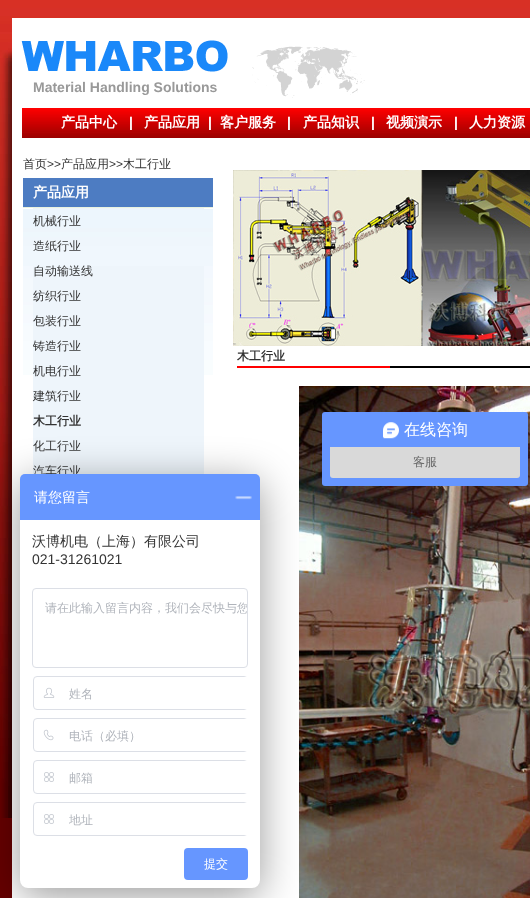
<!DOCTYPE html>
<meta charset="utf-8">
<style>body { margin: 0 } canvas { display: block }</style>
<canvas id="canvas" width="530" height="898"></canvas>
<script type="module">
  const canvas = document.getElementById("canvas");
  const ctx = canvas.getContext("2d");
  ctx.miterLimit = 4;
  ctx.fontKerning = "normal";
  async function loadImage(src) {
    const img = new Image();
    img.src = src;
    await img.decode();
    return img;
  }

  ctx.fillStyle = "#660000";
  ctx.fillRect(0, 0, 530, 898);
  ctx.drawImage(await loadImage("img1.png"), 0, 0, 530, 32);
  ctx.drawImage(await loadImage("img2.png"), 0, 32, 12, 786);
  ctx.fillStyle = "#ffffff";
  ctx.fillRect(12, 18, 518, 880);
  ctx.drawImage(await loadImage("img3.png"), 21, 40, 207, 32);
  ctx.drawImage(await loadImage("img4.png"), 252, 46, 113, 52);
  ctx.font = "bold 14px Liberation Sans";
  ctx.fillStyle = "#999999";
  ctx.fillText("Material Handling Solutions", 33, 92);
  ctx.drawImage(await loadImage("img5.png"), 22, 108, 508, 30);
  ctx.font = "bold 14px WenQuanYi Zen Hei";
  ctx.fillStyle = "#ffffff";
  ctx.fillText("产品中心", 61, 127);
  ctx.font = "bold 14px Liberation Sans";
  ctx.fillText("|", 129, 127);
  ctx.font = "bold 14px WenQuanYi Zen Hei";
  ctx.fillText("产品应用", 144, 127);
  ctx.font = "bold 14px Liberation Sans";
  ctx.fillText("|", 208, 127);
  ctx.font = "bold 14px WenQuanYi Zen Hei";
  ctx.fillText("客户服务", 220, 127);
  ctx.font = "bold 14px Liberation Sans";
  ctx.fillText("|", 287, 127);
  ctx.font = "bold 14px WenQuanYi Zen Hei";
  ctx.fillText("产品知识", 303, 127);
  ctx.font = "bold 14px Liberation Sans";
  ctx.fillText("|", 371, 127);
  ctx.font = "bold 14px WenQuanYi Zen Hei";
  ctx.fillText("视频演示", 386, 127);
  ctx.font = "bold 14px Liberation Sans";
  ctx.fillText("|", 454, 127);
  ctx.font = "bold 14px WenQuanYi Zen Hei";
  ctx.fillText("人力资源", 469, 127);
  ctx.font = "500 12px WenQuanYi Zen Hei";
  ctx.fillStyle = "#333333";
  ctx.fillText("首页", 23, 168);
  ctx.font = "12px Liberation Sans";
  ctx.fillText(">>", 47, 168);
  ctx.font = "500 12px WenQuanYi Zen Hei";
  ctx.fillText("产品应用", 61, 168);
  ctx.font = "12px Liberation Sans";
  ctx.fillText(">>", 109, 168);
  ctx.font = "500 12px WenQuanYi Zen Hei";
  ctx.fillText("木工行业", 123, 168);
  ctx.drawImage(await loadImage("img6.png"), 23, 178, 190, 197);
  ctx.font = "bold 14px WenQuanYi Zen Hei";
  ctx.fillStyle = "#ffffff";
  ctx.fillText("产品应用", 33, 197);
  ctx.fillStyle = "#eef5fb";
  ctx.fillRect(33, 208, 171, 1);
  ctx.font = "500 12px WenQuanYi Zen Hei";
  ctx.fillStyle = "#333333";
  ctx.fillText("机械行业", 33, 225);
  ctx.fillText("造纸行业", 33, 250);
  ctx.fillStyle = "#eef5fb";
  ctx.fillRect(33, 266, 171, 208);
  ctx.fillStyle = "#333333";
  ctx.fillText("自动输送线", 33, 275);
  ctx.fillText("纺织行业", 33, 300);
  ctx.fillText("包装行业", 33, 325);
  ctx.fillText("铸造行业", 33, 350);
  ctx.fillText("机电行业", 33, 375);
  ctx.fillText("建筑行业", 33, 400);
  ctx.font = "bold 12px WenQuanYi Zen Hei";
  ctx.fillText("木工行业", 33, 425);
  ctx.font = "500 12px WenQuanYi Zen Hei";
  ctx.fillText("化工行业", 33, 450);
  ctx.fillText("汽车行业", 33, 475);
  ctx.drawImage(await loadImage("img7.png"), 233, 170, 297, 176);
  ctx.font = "bold 12px WenQuanYi Zen Hei";
  ctx.fillText("木工行业", 237, 360);
  ctx.fillStyle = "#ff0000";
  ctx.fillRect(237, 366, 153, 2);
  ctx.fillStyle = "#000000";
  ctx.fillRect(390, 366, 140, 2);
  ctx.drawImage(await loadImage("img8.png"), 299, 386, 231, 512);
  ctx.fillStyle = "#6696ff";
  ctx.beginPath();
  ctx.roundRect(322, 412, 206, 74, 3);
  ctx.fill();
  ctx.drawImage(await loadImage("img9.png"), 383, 422, 16, 17);
  ctx.font = "500 16px WenQuanYi Zen Hei";
  ctx.fillStyle = "#ffffff";
  ctx.fillText("在线咨询", 404, 435);
  ctx.fillStyle = "#d9d9d9";
  ctx.beginPath();
  ctx.roundRect(330, 447, 190, 31, [0, 0, 3, 3]);
  ctx.fill();
  ctx.font = "500 12px WenQuanYi Zen Hei";
  ctx.fillStyle = "#666666";
  ctx.fillText("客服", 413, 466);
  ctx.fillStyle = "rgba(0, 0, 0, 0.4)";
  ctx.filter = "blur(20px)";
  ctx.beginPath();
  ctx.roundRect(20, 482, 240, 414, 8);
  ctx.fill();
  ctx.filter = "none";
  ctx.fillStyle = "#ffffff";
  ctx.beginPath();
  ctx.roundRect(20, 474, 240, 414, 8);
  ctx.fill();
  ctx.fillStyle = "#6696ff";
  ctx.beginPath();
  ctx.roundRect(20, 474, 240, 46, [5, 5, 0, 0]);
  ctx.fill();
  ctx.font = "500 14px WenQuanYi Zen Hei";
  ctx.fillStyle = "#ffffff";
  ctx.fillText("请您留言", 34, 502);
  ctx.drawImage(await loadImage("img10.png"), 235, 496, 17, 4);
  ctx.fillStyle = "#333333";
  ctx.fillText("沃博机电（上海）有限公司", 32, 546);
  ctx.font = "14px Liberation Sans";
  ctx.fillText("021-31261021", 32, 564);
  ctx.beginPath();
  ctx.roundRect(32.5, 588.5, 215, 79, 3.5);
  ctx.strokeStyle = "#dcdfe6";
  ctx.stroke();
  ctx.save();
  ctx.beginPath();
  ctx.roundRect(33, 589, 214, 78, 3);
  ctx.clip();
  ctx.font = "500 12px WenQuanYi Zen Hei";
  ctx.fillStyle = "#b0b4bb";
  ctx.fillText("请在此输入留言内容，我们会尽快与您", 45, 612);
  ctx.restore();
  ctx.beginPath();
  ctx.roundRect(33.5, 676.5, 214, 33, 3.5);
  ctx.stroke();
  ctx.drawImage(await loadImage("img11.png"), 43, 687, 12, 11);
  ctx.fillStyle = "#ffffff";
  ctx.fillRect(244, 677, 4, 32);
  ctx.font = "500 12px WenQuanYi Zen Hei";
  ctx.fillStyle = "#b0b4bb";
  ctx.fillText("姓名", 69, 698);
  ctx.beginPath();
  ctx.roundRect(33.5, 718.5, 214, 33, 3.5);
  ctx.stroke();
  ctx.drawImage(await loadImage("img12.png"), 43, 729, 11, 12);
  ctx.fillStyle = "#ffffff";
  ctx.fillRect(244, 719, 4, 32);
  ctx.fillStyle = "#b0b4bb";
  ctx.fillText("电话（必填）", 69, 740);
  ctx.beginPath();
  ctx.roundRect(33.5, 760.5, 214, 33, 3.5);
  ctx.stroke();
  ctx.drawImage(await loadImage("img13.png"), 44, 772, 10, 10);
  ctx.fillStyle = "#ffffff";
  ctx.fillRect(244, 761, 4, 32);
  ctx.fillStyle = "#b0b4bb";
  ctx.fillText("邮箱", 69, 782);
  ctx.beginPath();
  ctx.roundRect(33.5, 802.5, 214, 33, 3.5);
  ctx.stroke();
  ctx.drawImage(await loadImage("img13.png"), 44, 814, 10, 10);
  ctx.fillStyle = "#ffffff";
  ctx.fillRect(244, 803, 4, 32);
  ctx.save();
  ctx.beginPath();
  ctx.rect(69, 812, 181, 17);
  ctx.clip();
  ctx.fillStyle = "#b0b4bb";
  ctx.fillText("地址", 69, 824);
  ctx.restore();
  ctx.fillStyle = "#6696ff";
  ctx.beginPath();
  ctx.roundRect(184, 848, 64, 32, 4);
  ctx.fill();
  ctx.fillStyle = "#ffffff";
  ctx.fillText("提交", 204, 868);
</script>
